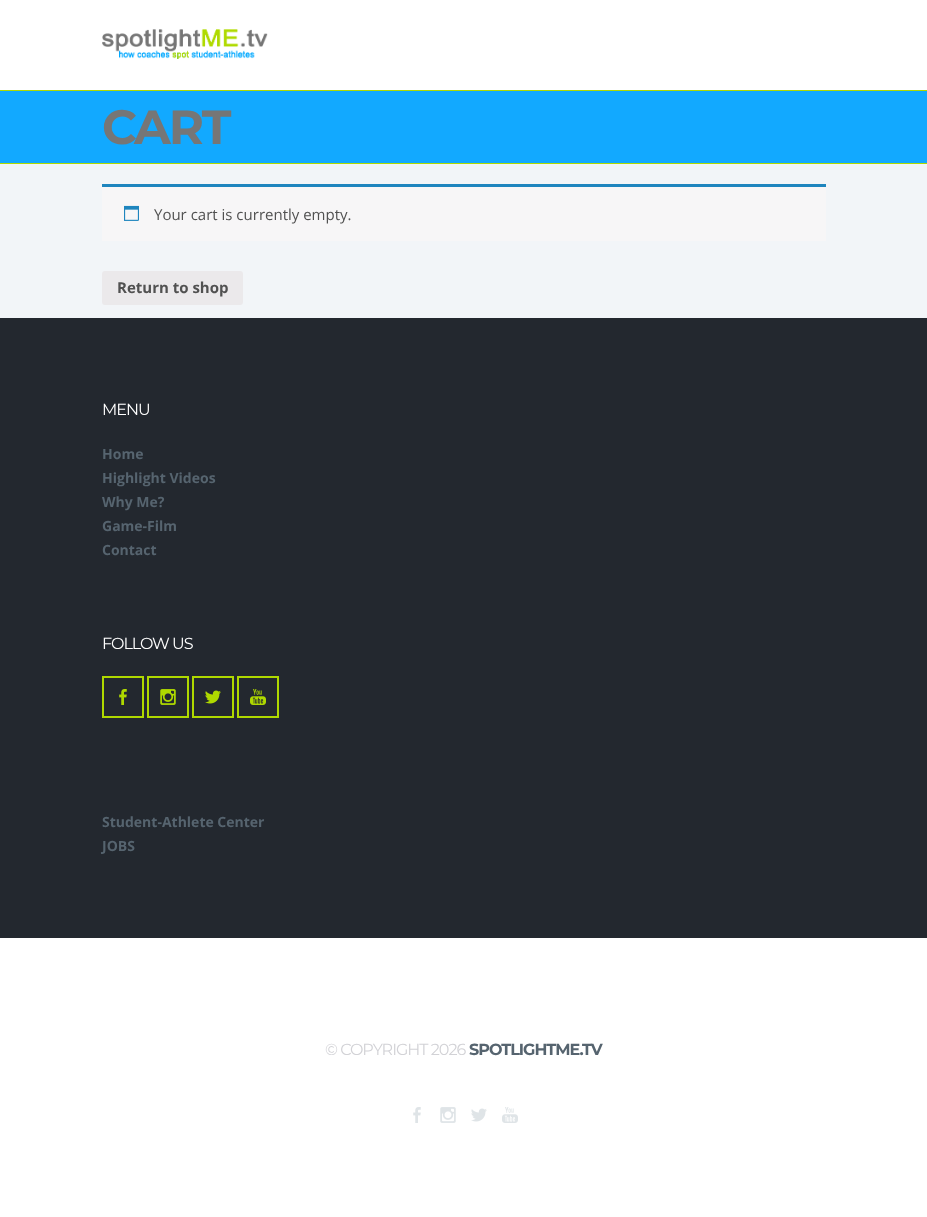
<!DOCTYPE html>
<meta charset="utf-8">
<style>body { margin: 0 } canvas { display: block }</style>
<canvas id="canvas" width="927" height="1217"></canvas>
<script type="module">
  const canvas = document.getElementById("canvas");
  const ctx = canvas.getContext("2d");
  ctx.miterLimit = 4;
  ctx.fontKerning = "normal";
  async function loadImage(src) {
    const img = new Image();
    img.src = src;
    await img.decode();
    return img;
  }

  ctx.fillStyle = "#ffffff";
  ctx.fillRect(0, 0, 927, 1217);
  ctx.drawImage(await loadImage("img1.png"), 102, 29, 166, 30);
  ctx.fillStyle = "#f2f5f8";
  ctx.fillRect(0, 164, 927, 154);
  ctx.fillStyle = "#afd900";
  ctx.fillRect(0, 90, 927, 1);
  ctx.fillStyle = "#12a9ff";
  ctx.fillRect(0, 91, 927, 72);
  ctx.letterSpacing = "-2px";
  ctx.font = "bold 48px Montserrat";
  ctx.fillStyle = "#767676";
  ctx.fillText("CART", 102, 144);
  ctx.fillStyle = "#afd900";
  ctx.fillRect(0, 163, 927, 1);
  ctx.fillStyle = "#f7f6f7";
  ctx.fillRect(102, 187, 724, 54);
  ctx.fillStyle = "#1e85be";
  ctx.fillRect(102, 184, 724, 3);
  ctx.drawImage(await loadImage("img2.png"), 124, 205, 15, 16);
  ctx.letterSpacing = "0px";
  ctx.font = "15px Open Sans";
  ctx.fillStyle = "#515151";
  ctx.fillText("Your cart is currently empty.", 154, 220);
  ctx.fillStyle = "#ebe9eb";
  ctx.beginPath();
  ctx.roundRect(102, 271, 141, 34, 3);
  ctx.fill();
  ctx.font = "bold 15px Open Sans";
  ctx.fillStyle = "#515151";
  ctx.fillText("Return to shop", 117, 293);
  ctx.fillStyle = "#23282f";
  ctx.fillRect(0, 318, 927, 620);
  ctx.letterSpacing = "-1px";
  ctx.font = "16px Montserrat";
  ctx.fillStyle = "#ffffff";
  ctx.fillText("MENU", 102, 415);
  ctx.letterSpacing = "0px";
  ctx.font = "bold 14px Open Sans";
  ctx.fillStyle = "#56646f";
  ctx.fillText("Home", 102, 459);
  ctx.fillText("Highlight Videos", 102, 483);
  ctx.fillText("Why Me?", 102, 507);
  ctx.fillText("Game-Film", 102, 531);
  ctx.fillText("Contact", 102, 555);
  ctx.letterSpacing = "-1px";
  ctx.font = "16px Montserrat";
  ctx.fillStyle = "#ffffff";
  ctx.fillText("FOLLOW US", 102, 649);
  ctx.strokeStyle = "#afd900";
  ctx.lineWidth = 2;
  ctx.strokeRect(103, 677, 40, 40);
  ctx.drawImage(await loadImage("img3.png"), 119, 689, 8, 16);
  ctx.strokeRect(148, 677, 40, 40);
  ctx.drawImage(await loadImage("img4.png"), 160, 689, 16, 16);
  ctx.strokeRect(193, 677, 40, 40);
  ctx.drawImage(await loadImage("img5.png"), 205, 690, 16, 14);
  ctx.strokeRect(238, 677, 40, 40);
  ctx.drawImage(await loadImage("img6.png"), 250, 689, 16, 16);
  ctx.letterSpacing = "0px";
  ctx.font = "bold 14px Open Sans";
  ctx.fillStyle = "#56646f";
  ctx.fillText("Student-Athlete Center", 102, 827);
  ctx.fillText("JOBS", 102, 851);
  ctx.letterSpacing = "-1px";
  ctx.font = "16px Montserrat";
  ctx.fillStyle = "#d2d2d6";
  ctx.fillText("© COPYRIGHT 2026", 325, 1055);
  ctx.font = "bold 16px Montserrat";
  ctx.fillStyle = "#56646f";
  ctx.fillText("SPOTLIGHTME.TV", 469, 1055);
  ctx.drawImage(await loadImage("img7.png"), 413, 1107, 8, 16);
  ctx.drawImage(await loadImage("img8.png"), 440, 1107, 16, 16);
  ctx.drawImage(await loadImage("img9.png"), 471, 1108, 16, 14);
  ctx.drawImage(await loadImage("img10.png"), 502, 1107, 16, 16);
</script>
